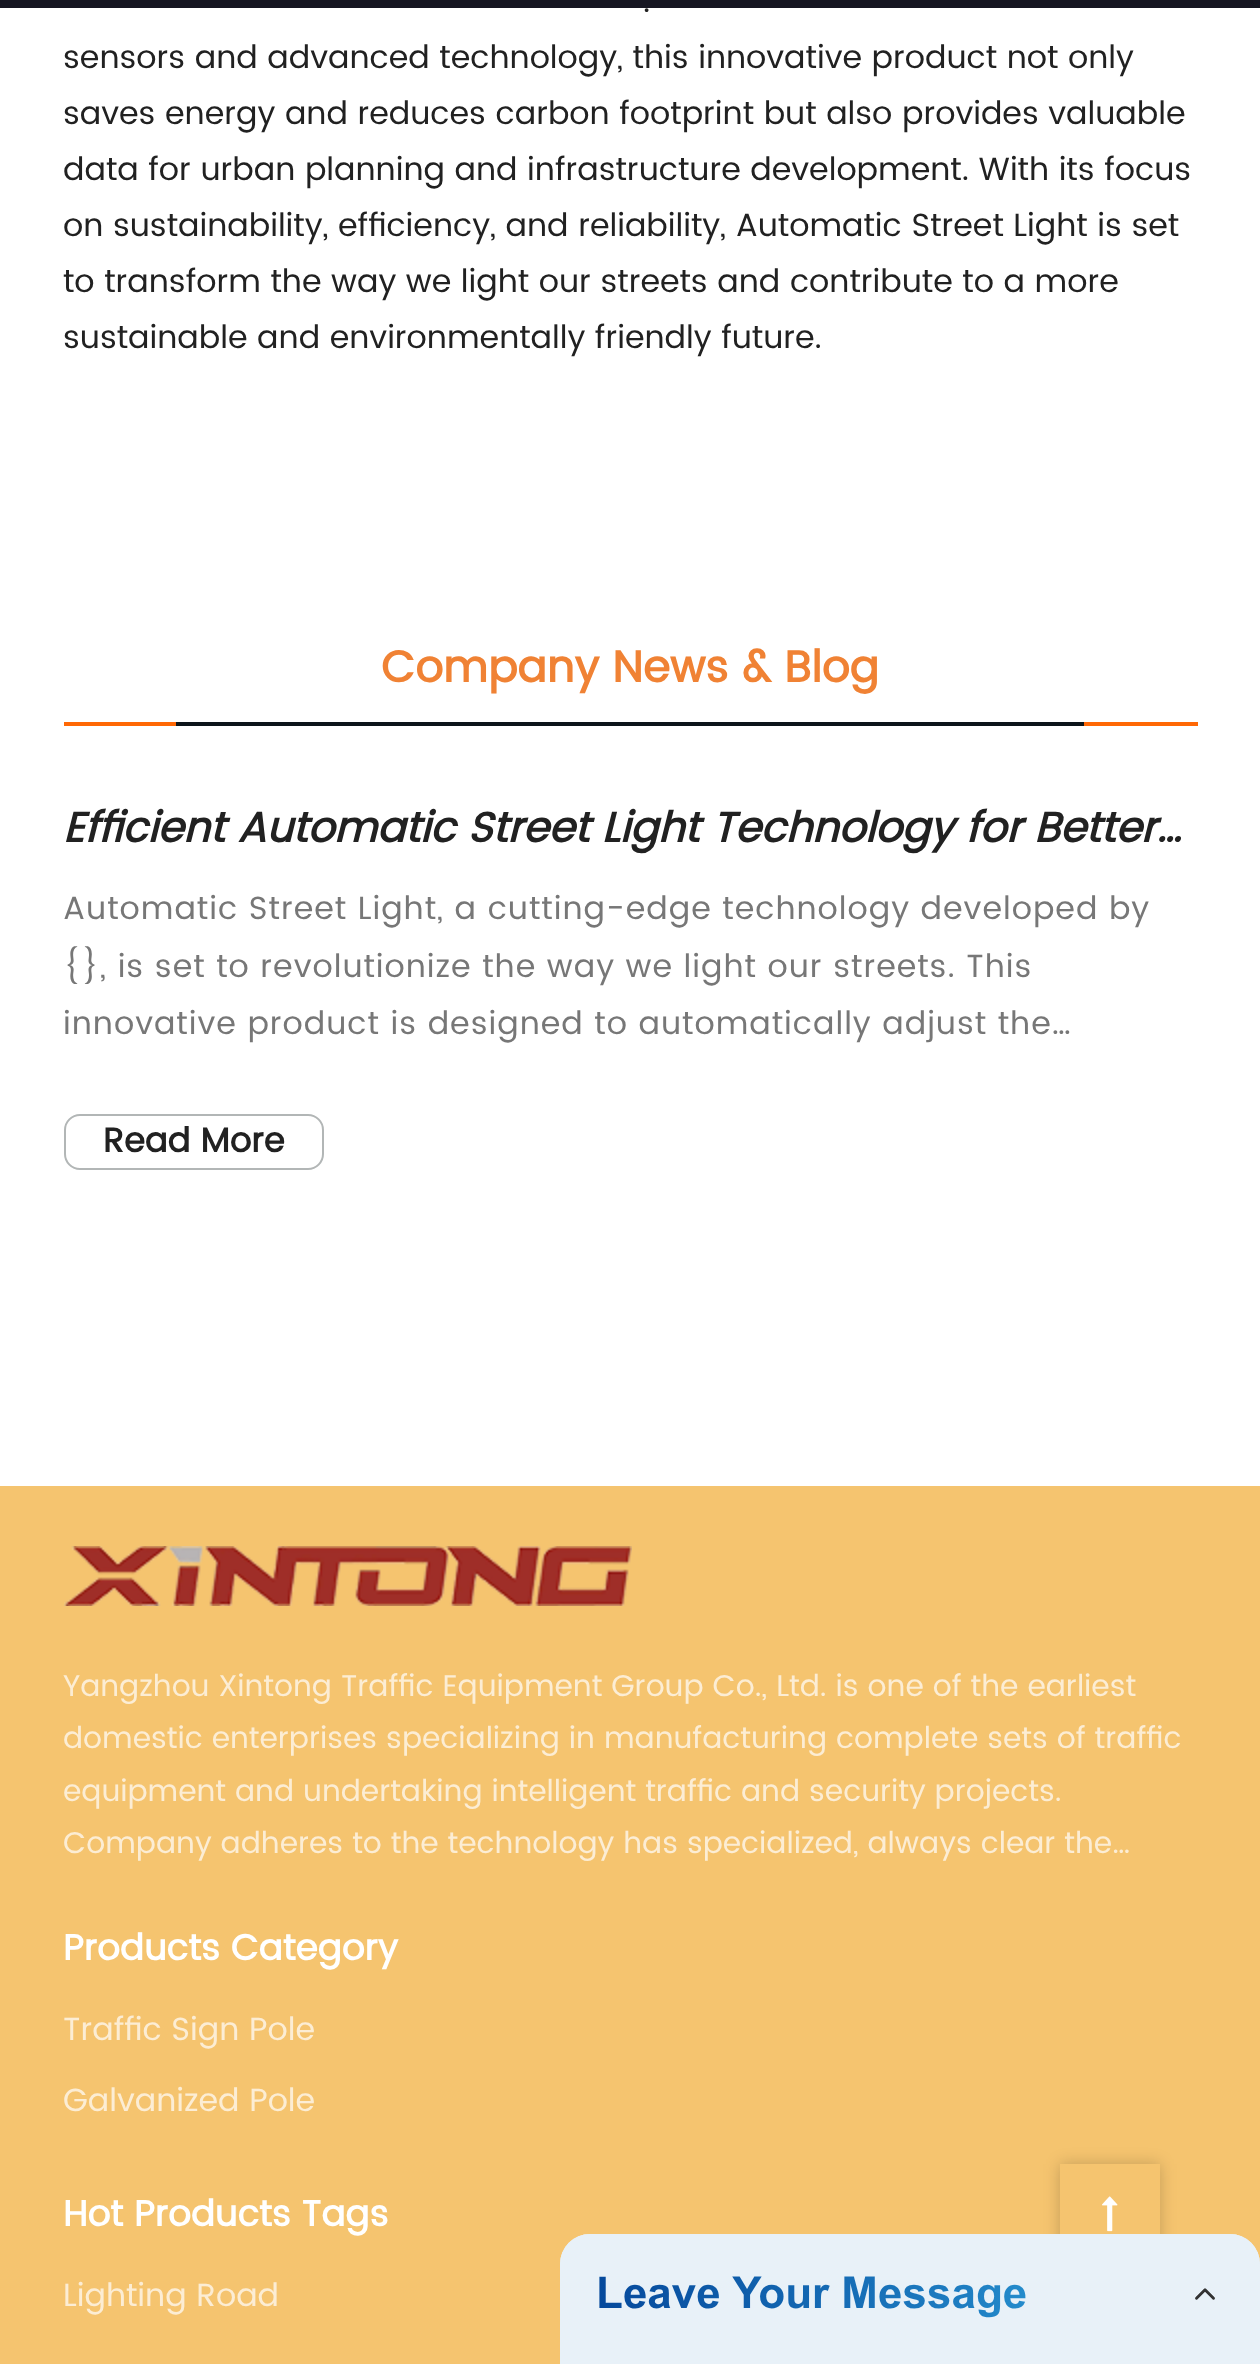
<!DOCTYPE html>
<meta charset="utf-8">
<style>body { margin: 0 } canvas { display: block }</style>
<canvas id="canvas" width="1260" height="2364"></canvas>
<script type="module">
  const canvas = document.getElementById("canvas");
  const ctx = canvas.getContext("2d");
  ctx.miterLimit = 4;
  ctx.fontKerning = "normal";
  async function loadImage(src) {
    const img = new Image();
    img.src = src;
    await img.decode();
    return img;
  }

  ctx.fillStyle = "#f5c46f";
  ctx.fillRect(0, 0, 1260, 2364);
  ctx.fillStyle = "#161622";
  ctx.fillRect(0, 0, 1260, 8);
  ctx.fillStyle = "#ffffff";
  ctx.fillRect(0, 8, 1260, 1478);
  ctx.font = "32px Poppins";
  ctx.fillStyle = "#212121";
  ctx.fillText(".", 643, 12);
  ctx.fillText("sensors and advanced technology, this innovative product not only", 63, 68);
  ctx.fillText("saves energy and reduces carbon footprint but also provides valuable", 63, 124);
  ctx.fillText("data for urban planning and infrastructure development. With its focus", 63, 180);
  ctx.fillText("on sustainability, efficiency, and reliability, Automatic Street Light is set", 63, 236);
  ctx.fillText("to transform the way we light our streets and contribute to a more", 63, 292);
  ctx.fillText("sustainable and environmentally friendly future.", 63, 348);
  ctx.font = "bold 44px Poppins";
  ctx.fillStyle = "#f08234";
  ctx.fillText("Company News & Blog", 381, 682);
  ctx.fillStyle = "#ff6805";
  ctx.fillRect(64, 722, 1134, 4);
  ctx.fillStyle = "#0d151a";
  ctx.fillRect(176, 722, 908, 4);
  ctx.font = "italic bold 42px Poppins";
  ctx.fillStyle = "#212121";
  ctx.fillText("Efficient Automatic Street Light Technology for Better…", 63, 842);
  ctx.letterSpacing = "1px";
  ctx.font = "32px Poppins";
  ctx.fillStyle = "#777777";
  ctx.fillText("Automatic Street Light, a cutting-edge technology developed by", 63, 919);
  ctx.fillText("{}, is set to revolutionize the way we light our streets. This", 63, 977);
  ctx.fillText("innovative product is designed to automatically adjust the…", 63, 1034);
  ctx.beginPath();
  ctx.roundRect(65, 1115, 258, 54, 15);
  ctx.strokeStyle = "#b2b6b6";
  ctx.lineWidth = 2;
  ctx.stroke();
  ctx.letterSpacing = "0px";
  ctx.font = "bold 34px Poppins";
  ctx.fillStyle = "#212121";
  ctx.fillText("Read More", 103, 1152);
  ctx.drawImage(await loadImage("img1.png"), 64, 1546, 568, 60);
  ctx.font = "30px Poppins";
  ctx.fillStyle = "#fcedd4";
  ctx.fillText("Yangzhou Xintong Traffic Equipment Group Co., Ltd. is one of the earliest", 63, 1696);
  ctx.fillText("domestic enterprises specializing in manufacturing complete sets of traffic", 63, 1748);
  ctx.fillText("equipment and undertaking intelligent traffic and security projects.", 63, 1801);
  ctx.fillText("Company adheres to the technology has specialized, always clear the…", 63, 1853);
  ctx.font = "bold 36px Poppins";
  ctx.fillStyle = "#ffffff";
  ctx.fillText("Products Category", 63, 1960);
  ctx.font = "32px Poppins";
  ctx.fillStyle = "#fcedd4";
  ctx.fillText("Traffic Sign Pole", 63, 2040);
  ctx.fillText("Galvanized Pole", 63, 2111);
  ctx.font = "bold 36px Poppins";
  ctx.fillStyle = "#ffffff";
  ctx.fillText("Hot Products Tags", 63, 2226);
  ctx.font = "32px Poppins";
  ctx.fillStyle = "#fcedd4";
  ctx.fillText("Lighting Road", 63, 2306);
  ctx.save();
  ctx.beginPath();
  ctx.moveTo(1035, 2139);
  ctx.lineTo(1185, 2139);
  ctx.lineTo(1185, 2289);
  ctx.lineTo(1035, 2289);
  ctx.closePath();
  ctx.moveTo(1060, 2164);
  ctx.lineTo(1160, 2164);
  ctx.lineTo(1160, 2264);
  ctx.lineTo(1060, 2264);
  ctx.closePath();
  ctx.clip("evenodd");
  ctx.fillStyle = "rgba(0, 0, 0, 0.2)";
  ctx.filter = "blur(8px)";
  ctx.beginPath();
  ctx.rect(1060, 2164, 100, 100);
  ctx.fill();
  ctx.filter = "none";
  ctx.restore();
  ctx.drawImage(await loadImage("img2.png"), 1102, 2196, 16, 36);
  ctx.drawImage(await loadImage("img3.png"), 560, 2234, 700, 130);
</script>
